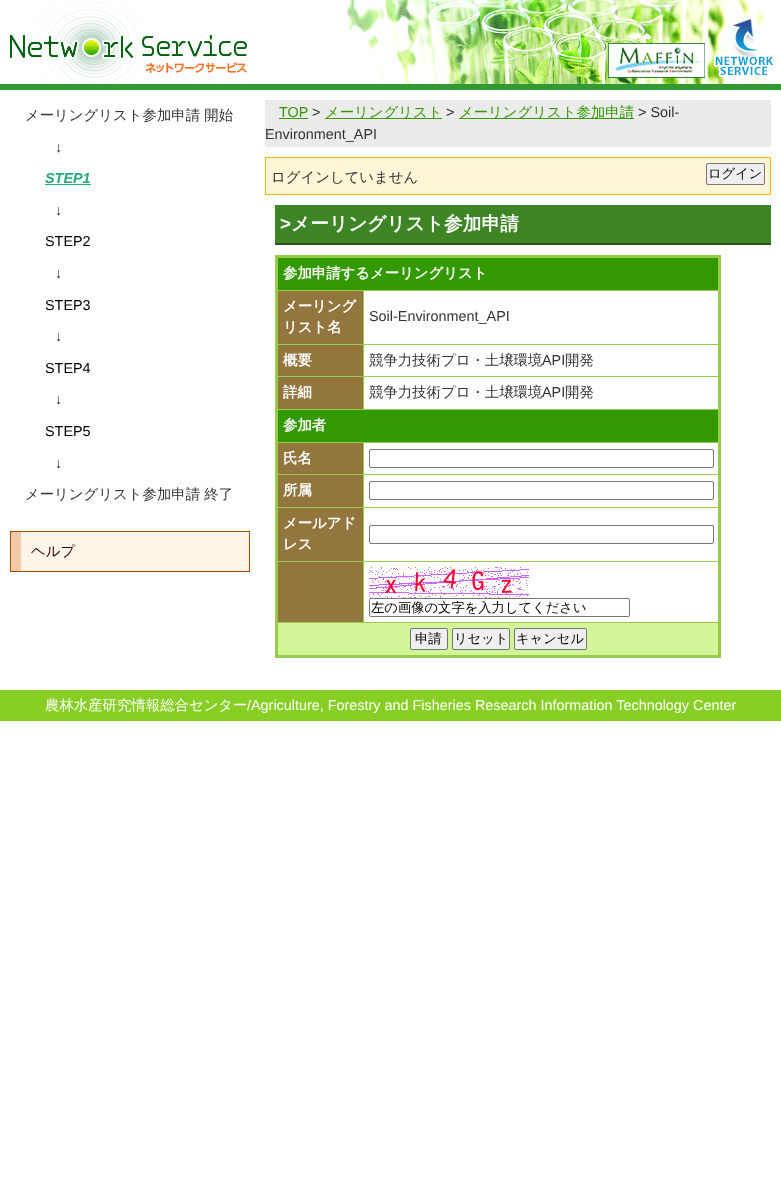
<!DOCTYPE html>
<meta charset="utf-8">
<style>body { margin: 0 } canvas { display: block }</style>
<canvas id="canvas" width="781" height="1202"></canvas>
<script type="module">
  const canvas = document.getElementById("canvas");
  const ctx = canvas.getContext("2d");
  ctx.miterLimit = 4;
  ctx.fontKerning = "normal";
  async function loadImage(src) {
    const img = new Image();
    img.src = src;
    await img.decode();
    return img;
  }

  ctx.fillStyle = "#ffffff";
  ctx.fillRect(0, 0, 781, 1202);
  ctx.fillStyle = "#339933";
  ctx.fillRect(0, 84, 781, 6);
  ctx.drawImage(await loadImage("img1.png"), 10, 1, 237, 82);
  ctx.drawImage(await loadImage("img2.png"), 346, 0, 365, 84);
  ctx.drawImage(await loadImage("img3.png"), 711, 0, 70, 84);
  ctx.font = "500 14.4px WenQuanYi Zen Hei";
  ctx.fillStyle = "#333333";
  ctx.fillText("メーリングリスト参加申請 開始", 25, 120);
  ctx.font = "14.4px Liberation Sans";
  ctx.fillText("↓", 55, 152);
  ctx.font = "italic bold 14.4px Liberation Sans";
  ctx.fillStyle = "#22aa77";
  ctx.fillText("STEP1", 45, 183);
  ctx.fillRect(45, 184, 46, 1);
  ctx.font = "14.4px Liberation Sans";
  ctx.fillStyle = "#333333";
  ctx.fillText("↓", 55, 215);
  ctx.fillStyle = "#000000";
  ctx.fillText("STEP2", 45, 246);
  ctx.fillStyle = "#333333";
  ctx.fillText("↓", 55, 278);
  ctx.fillStyle = "#000000";
  ctx.fillText("STEP3", 45, 310);
  ctx.fillStyle = "#333333";
  ctx.fillText("↓", 55, 341);
  ctx.fillStyle = "#000000";
  ctx.fillText("STEP4", 45, 373);
  ctx.fillStyle = "#333333";
  ctx.fillText("↓", 55, 404);
  ctx.fillStyle = "#000000";
  ctx.fillText("STEP5", 45, 436);
  ctx.fillStyle = "#333333";
  ctx.fillText("↓", 55, 468);
  ctx.font = "500 14.4px WenQuanYi Zen Hei";
  ctx.fillText("メーリングリスト参加申請 終了", 25, 499);
  ctx.strokeStyle = "#a74b01";
  ctx.strokeRect(10.5, 531.5, 239, 40);
  ctx.fillStyle = "#fff4e8";
  ctx.fillRect(21, 532, 228, 39);
  ctx.fillStyle = "#f0caa9";
  ctx.fillRect(11, 532, 10, 39);
  ctx.fillStyle = "#330000";
  ctx.fillText("ヘルプ", 31, 556);
  ctx.fillStyle = "#ebebeb";
  ctx.fillRect(265, 100, 506, 47);
  ctx.font = "14.4px Liberation Sans";
  ctx.fillStyle = "#339900";
  ctx.fillText("TOP", 279, 117);
  ctx.fillRect(279, 118, 29, 1);
  ctx.fillStyle = "#333333";
  ctx.fillText(">", 312, 117);
  ctx.fillStyle = "#339900";
  ctx.fillRect(325, 118, 117, 1);
  ctx.font = "500 14.4px WenQuanYi Zen Hei";
  ctx.fillText("メーリングリスト", 325, 117);
  ctx.font = "14.4px Liberation Sans";
  ctx.fillStyle = "#333333";
  ctx.fillText(">", 446, 117);
  ctx.fillStyle = "#339900";
  ctx.fillRect(459, 118, 175, 1);
  ctx.font = "500 14.4px WenQuanYi Zen Hei";
  ctx.fillText("メーリングリスト参加申請", 459, 117);
  ctx.font = "14.4px Liberation Sans";
  ctx.fillStyle = "#333333";
  ctx.fillText("> Soil-", 638, 117);
  ctx.fillText("Environment_API", 265, 139);
  ctx.fillStyle = "#fff6d7";
  ctx.beginPath();
  ctx.rect(265.5, 157.5, 505, 37);
  ctx.fill();
  ctx.strokeStyle = "#ffb400";
  ctx.stroke();
  ctx.font = "500 14.4px WenQuanYi Zen Hei";
  ctx.fillStyle = "#333333";
  ctx.fillText("ログインしていません", 271, 182);
  ctx.fillStyle = "#efefef";
  ctx.beginPath();
  ctx.roundRect(706.5, 163.5, 58, 21, 1.5);
  ctx.fill();
  ctx.strokeStyle = "#767676";
  ctx.stroke();
  ctx.font = "500 13.3px WenQuanYi Zen Hei";
  ctx.fillStyle = "#000000";
  ctx.fillText("ログイン", 708, 178);
  ctx.fillStyle = "#3e8525";
  ctx.fillRect(275, 205, 496, 38);
  ctx.fillStyle = "#2a521c";
  ctx.fillRect(275, 243, 496, 2);
  ctx.font = "bold 18.75px Liberation Sans";
  ctx.fillStyle = "#ffffff";
  ctx.fillText(">", 280, 230);
  ctx.font = "bold 18.75px WenQuanYi Zen Hei";
  ctx.fillText("メーリングリスト参加申請", 291, 230);
  ctx.fillStyle = "#9aca4b";
  ctx.fillRect(275, 255, 446, 3);
  ctx.fillRect(363, 290, 357, 1);
  ctx.fillRect(363, 344, 357, 1);
  ctx.fillRect(363, 376, 357, 1);
  ctx.fillRect(276, 409, 444, 1);
  ctx.fillRect(363, 442, 357, 1);
  ctx.fillRect(363, 474, 357, 1);
  ctx.fillRect(363, 507, 357, 1);
  ctx.fillRect(363, 561, 357, 1);
  ctx.fillRect(276, 622, 444, 1);
  ctx.fillRect(718, 255, 3, 403);
  ctx.fillRect(275, 655, 446, 3);
  ctx.fillRect(363, 376, 1, 34);
  ctx.fillRect(276, 376, 88, 1);
  ctx.fillRect(363, 344, 1, 33);
  ctx.fillRect(276, 344, 88, 1);
  ctx.fillRect(363, 290, 1, 55);
  ctx.fillRect(276, 290, 88, 1);
  ctx.fillRect(363, 561, 1, 62);
  ctx.fillRect(276, 561, 88, 1);
  ctx.fillRect(363, 507, 1, 55);
  ctx.fillRect(276, 507, 88, 1);
  ctx.fillRect(363, 474, 1, 34);
  ctx.fillRect(276, 474, 88, 1);
  ctx.fillRect(363, 442, 1, 33);
  ctx.fillRect(276, 442, 88, 1);
  ctx.fillRect(275, 255, 3, 403);
  ctx.fillStyle = "#339900";
  ctx.fillRect(278, 258, 440, 32);
  ctx.font = "bold 14.4px WenQuanYi Zen Hei";
  ctx.fillStyle = "#ffffff";
  ctx.fillText("参加申請するメーリングリスト", 283, 278);
  ctx.fillStyle = "#93753e";
  ctx.fillRect(278, 291, 85, 53);
  ctx.fillStyle = "#ffffff";
  ctx.fillText("メーリング", 283, 311);
  ctx.fillText("リスト名", 283, 332);
  ctx.font = "14.4px Liberation Sans";
  ctx.fillStyle = "#333333";
  ctx.fillText("Soil-Environment_API", 369, 321);
  ctx.fillStyle = "#93753e";
  ctx.fillRect(278, 345, 85, 31);
  ctx.font = "bold 14.4px WenQuanYi Zen Hei";
  ctx.fillStyle = "#ffffff";
  ctx.fillText("概要", 283, 365);
  ctx.font = "500 14.4px WenQuanYi Zen Hei";
  ctx.fillStyle = "#333333";
  ctx.fillText("競争力技術プロ・土壌環境", 369, 365);
  ctx.font = "14.4px Liberation Sans";
  ctx.fillText("API", 542, 365);
  ctx.font = "500 14.4px WenQuanYi Zen Hei";
  ctx.fillText("開発", 565, 365);
  ctx.fillStyle = "#93753e";
  ctx.fillRect(278, 377, 85, 32);
  ctx.font = "bold 14.4px WenQuanYi Zen Hei";
  ctx.fillStyle = "#ffffff";
  ctx.fillText("詳細", 283, 397);
  ctx.font = "500 14.4px WenQuanYi Zen Hei";
  ctx.fillStyle = "#333333";
  ctx.fillText("競争力技術プロ・土壌環境", 369, 397);
  ctx.font = "14.4px Liberation Sans";
  ctx.fillText("API", 542, 397);
  ctx.font = "500 14.4px WenQuanYi Zen Hei";
  ctx.fillText("開発", 565, 397);
  ctx.fillStyle = "#339900";
  ctx.fillRect(278, 410, 440, 32);
  ctx.font = "bold 14.4px WenQuanYi Zen Hei";
  ctx.fillStyle = "#ffffff";
  ctx.fillText("参加者", 283, 430);
  ctx.fillStyle = "#93753e";
  ctx.fillRect(278, 443, 85, 31);
  ctx.fillStyle = "#ffffff";
  ctx.fillText("氏名", 283, 463);
  ctx.beginPath();
  ctx.roundRect(369.5, 449.5, 344, 18, 1.5);
  ctx.stroke();
  ctx.fillStyle = "#93753e";
  ctx.fillRect(278, 475, 85, 32);
  ctx.fillStyle = "#ffffff";
  ctx.fillText("所属", 283, 495);
  ctx.beginPath();
  ctx.roundRect(369.5, 481.5, 344, 18, 1.5);
  ctx.stroke();
  ctx.fillStyle = "#93753e";
  ctx.fillRect(278, 508, 85, 53);
  ctx.fillStyle = "#ffffff";
  ctx.fillText("メールアド", 283, 528);
  ctx.fillText("レス", 283, 549);
  ctx.beginPath();
  ctx.roundRect(369.5, 525.5, 344, 18, 1.5);
  ctx.stroke();
  ctx.fillStyle = "#93753e";
  ctx.fillRect(278, 562, 85, 60);
  ctx.drawImage(await loadImage("img4.png"), 369, 567, 160, 31);
  ctx.beginPath();
  ctx.roundRect(369.5, 598.5, 260, 18, 1.5);
  ctx.stroke();
  ctx.font = "500 13.3px WenQuanYi Zen Hei";
  ctx.fillStyle = "#000000";
  ctx.fillText("左の画像の文字を入力してください", 371, 612);
  ctx.fillStyle = "#d2f697";
  ctx.fillRect(278, 623, 440, 32);
  ctx.fillStyle = "#efefef";
  ctx.beginPath();
  ctx.roundRect(410.5, 628.5, 37, 21, 1.5);
  ctx.fill();
  ctx.stroke();
  ctx.fillStyle = "#000000";
  ctx.fillText("申請", 415, 643);
  ctx.fillStyle = "#efefef";
  ctx.beginPath();
  ctx.roundRect(452.5, 628.5, 57, 21, 1.5);
  ctx.fill();
  ctx.stroke();
  ctx.fillStyle = "#000000";
  ctx.fillText("リセット", 454, 643);
  ctx.fillStyle = "#efefef";
  ctx.beginPath();
  ctx.roundRect(514.5, 628.5, 72, 21, 1.5);
  ctx.fill();
  ctx.stroke();
  ctx.fillStyle = "#000000";
  ctx.fillText("キャンセル", 516, 643);
  ctx.fillStyle = "#87cf25";
  ctx.fillRect(0, 690, 781, 31);
  ctx.font = "500 14.4px WenQuanYi Zen Hei";
  ctx.fillStyle = "#ffffff";
  ctx.fillText("農林水産研究情報総合センター", 45, 710);
  ctx.font = "14.4px Liberation Sans";
  ctx.fillText("/Agriculture, Forestry and Fisheries Research Information Technology Center", 247, 710);
</script>
